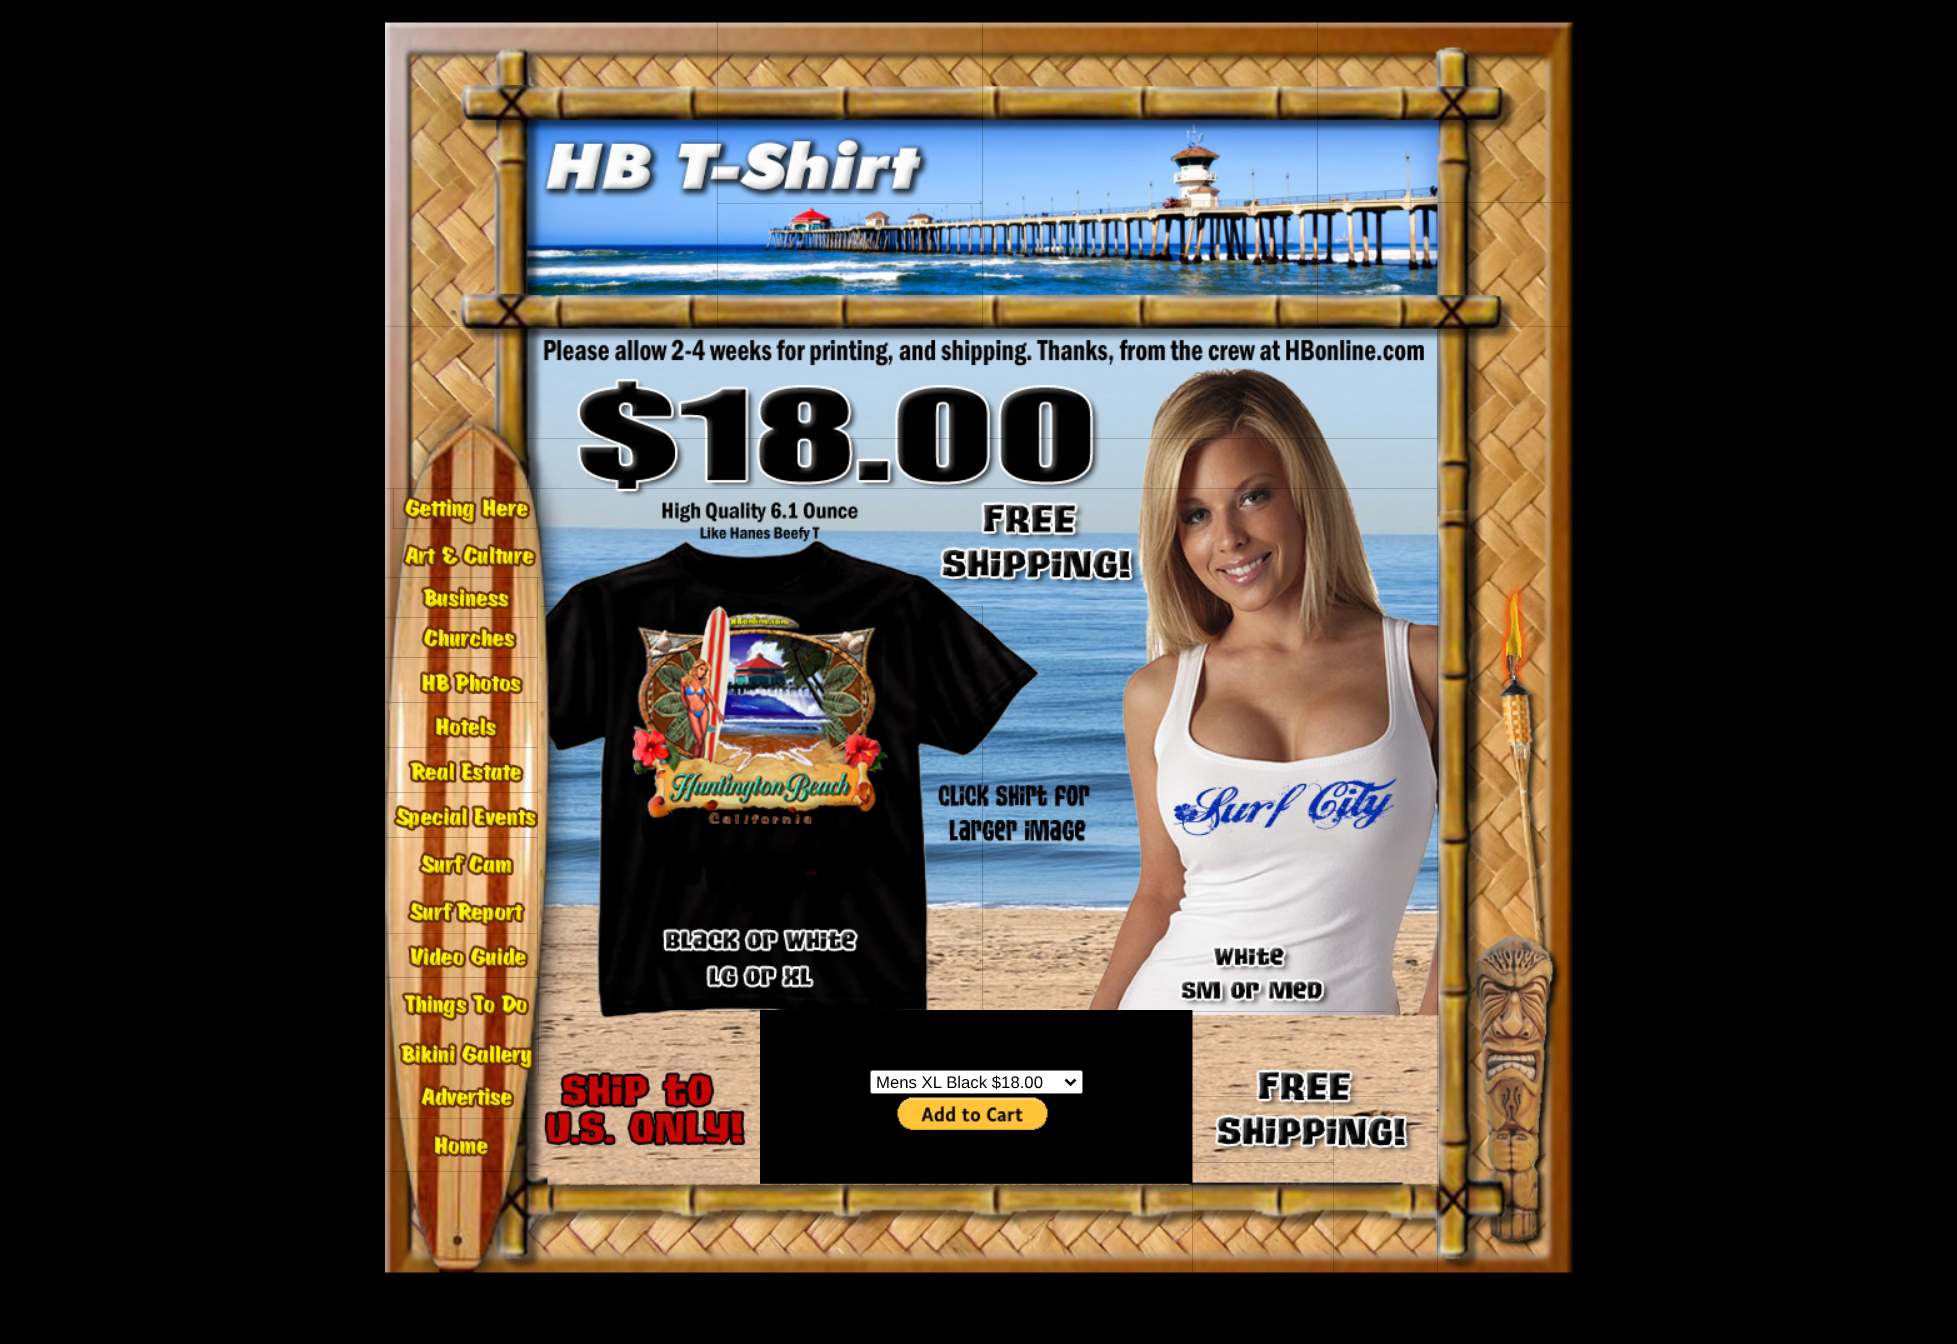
<!DOCTYPE html>
<meta charset="utf-8">
<style>body { margin: 0 } canvas { display: block }</style>
<canvas id="canvas" width="1957" height="1344"></canvas>
<script type="module">
  const canvas = document.getElementById("canvas");
  const ctx = canvas.getContext("2d");
  ctx.miterLimit = 4;
  ctx.fontKerning = "normal";
  async function loadImage(src) {
    const img = new Image();
    img.src = src;
    await img.decode();
    return img;
  }

  ctx.fillStyle = "#000000";
  ctx.fillRect(0, 0, 1957, 1344);
  ctx.drawImage(await loadImage("img1.png"), 385, 22, 333, 305);
  ctx.drawImage(await loadImage("img2.png"), 717, 22, 266, 182);
  ctx.drawImage(await loadImage("img3.png"), 982, 22, 333, 183);
  ctx.drawImage(await loadImage("img4.png"), 1315, 22, 3, 305);
  ctx.drawImage(await loadImage("img5.png"), 1317, 22, 256, 181);
  ctx.drawImage(await loadImage("img6.png"), 717, 203, 266, 124);
  ctx.drawImage(await loadImage("img7.png"), 982, 205, 333, 122);
  ctx.drawImage(await loadImage("img8.png"), 1317, 202, 256, 125);
  ctx.drawImage(await loadImage("img9.png"), 385, 326, 143, 163);
  ctx.drawImage(await loadImage("img10.png"), 527, 326, 911, 113);
  ctx.drawImage(await loadImage("img11.png"), 1437, 326, 136, 947);
  ctx.drawImage(await loadImage("img12.png"), 527, 438, 911, 51);
  ctx.drawImage(await loadImage("img13.png"), 385, 488, 9, 42);
  ctx.drawImage(await loadImage("img14.png"), 393, 488, 144, 41);
  ctx.drawImage(await loadImage("img15.png"), 536, 488, 902, 42);
  ctx.drawImage(await loadImage("img16.png"), 393, 528, 144, 2);
  ctx.drawImage(await loadImage("img17.png"), 385, 530, 155, 48);
  ctx.drawImage(await loadImage("img18.png"), 540, 530, 898, 75);
  ctx.drawImage(await loadImage("img19.png"), 385, 577, 153, 41);
  ctx.drawImage(await loadImage("img20.png"), 537, 577, 3, 401);
  ctx.drawImage(await loadImage("img21.png"), 540, 605, 443, 2);
  ctx.drawImage(await loadImage("img22.png"), 982, 605, 403, 405);
  ctx.drawImage(await loadImage("img23.png"), 1385, 605, 53, 668);
  ctx.drawImage(await loadImage("img24.png"), 385, 617, 153, 41);
  ctx.drawImage(await loadImage("img25.png"), 540, 606, 40, 667);
  ctx.drawImage(await loadImage("img26.png"), 580, 606, 403, 404);
  ctx.drawImage(await loadImage("img27.png"), 385, 657, 153, 46);
  ctx.drawImage(await loadImage("img28.png"), 385, 702, 153, 46);
  ctx.drawImage(await loadImage("img29.png"), 385, 747, 153, 46);
  ctx.drawImage(await loadImage("img30.png"), 385, 792, 153, 46);
  ctx.drawImage(await loadImage("img31.png"), 385, 837, 153, 48);
  ctx.drawImage(await loadImage("img32.png"), 385, 885, 153, 49);
  ctx.drawImage(await loadImage("img33.png"), 385, 933, 153, 45);
  ctx.drawImage(await loadImage("img34.png"), 385, 977, 154, 48);
  ctx.drawImage(await loadImage("img35.png"), 538, 977, 2, 98);
  ctx.drawImage(await loadImage("img40.png"), 580, 1010, 180, 2);
  ctx.drawImage(await loadImage("img36.png"), 580, 1011, 180, 84);
  ctx.drawImage(await loadImage("img41.png"), 1192, 1010, 193, 2);
  ctx.drawImage(await loadImage("img37.png"), 1192, 1011, 193, 86);
  ctx.drawImage(await loadImage("img38.png"), 385, 1025, 154, 50);
  ctx.drawImage(await loadImage("img39.png"), 385, 1075, 155, 44);
  ctx.fillStyle = "#ffffff";
  ctx.beginPath();
  ctx.roundRect(870.5, 1070.5, 212, 23, 2);
  ctx.fill();
  ctx.strokeStyle = "#767676";
  ctx.stroke();
  ctx.beginPath();
  ctx.moveTo(1065.5, 1079.5);
  ctx.lineTo(1070.5, 1084.5);
  ctx.lineTo(1075.5, 1079.5);
  ctx.strokeStyle = "#000000";
  ctx.lineWidth = 2.5;
  ctx.stroke();
  ctx.font = "16.75px Liberation Sans";
  ctx.fillStyle = "#000000";
  ctx.fillText("Mens XL Black $18.00", 876, 1088);
  ctx.drawImage(await loadImage("img42.png"), 897, 1097, 151, 33);
  ctx.drawImage(await loadImage("img43.png"), 385, 1118, 155, 54);
  ctx.drawImage(await loadImage("img44.png"), 580, 1095, 70, 178);
  ctx.drawImage(await loadImage("img45.png"), 650, 1095, 110, 64);
  ctx.drawImage(await loadImage("img46.png"), 1192, 1096, 142, 67);
  ctx.drawImage(await loadImage("img47.png"), 1333, 1096, 52, 177);
  ctx.drawImage(await loadImage("img48.png"), 385, 1171, 155, 102);
  ctx.drawImage(await loadImage("img49.png"), 650, 1158, 110, 115);
  ctx.drawImage(await loadImage("img51.png"), 1192, 1162, 142, 111);
  ctx.drawImage(await loadImage("img50.png"), 760, 1183, 433, 90);
</script>
